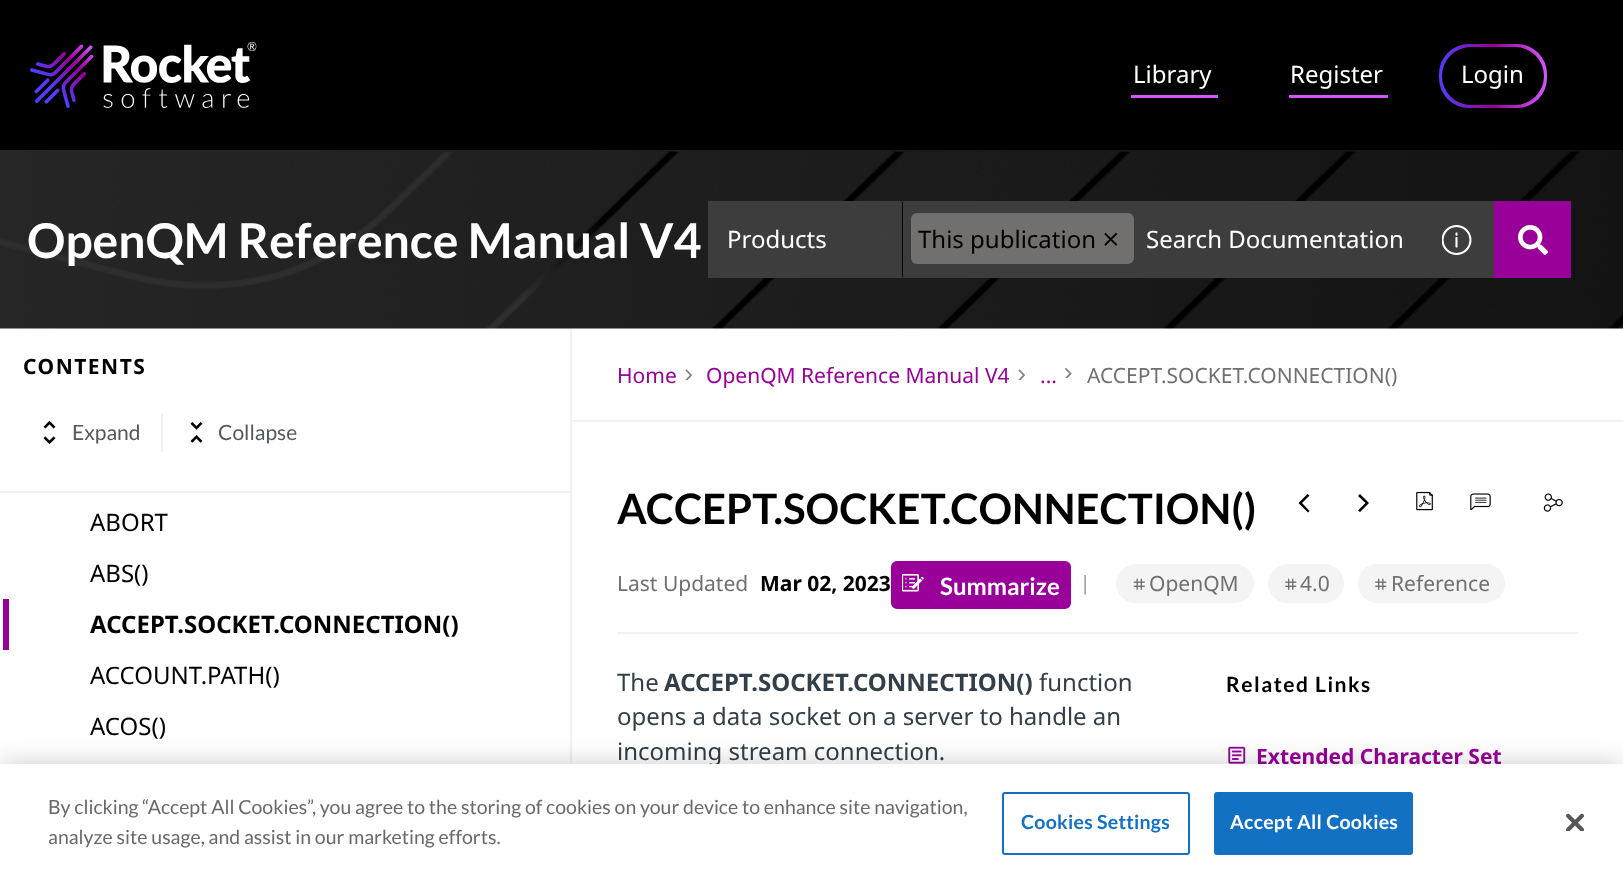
<!DOCTYPE html>
<meta charset="utf-8">
<style>body { margin: 0 } canvas { display: block }</style>
<canvas id="canvas" width="1623" height="886"></canvas>
<script type="module">
  const canvas = document.getElementById("canvas");
  const ctx = canvas.getContext("2d");
  ctx.miterLimit = 4;
  ctx.fontKerning = "normal";
  async function loadImage(src) {
    const img = new Image();
    img.src = src;
    await img.decode();
    return img;
  }
  let gradient;

  ctx.fillStyle = "#ffffff";
  ctx.fillRect(0, 0, 1623, 886);
  ctx.fillStyle = "#000000";
  ctx.fillRect(0, 0, 1623, 150);
  ctx.drawImage(await loadImage("img1.png"), 30, 42, 227, 66);
  ctx.font = "24px Noto Sans";
  ctx.fillStyle = "#ffffff";
  ctx.fillText("Library", 1133, 83);
  ctx.fillStyle = "#d257fc";
  ctx.fillRect(1131, 95, 87, 3);
  ctx.fillStyle = "#ffffff";
  ctx.fillText("Register", 1290, 83);
  ctx.fillStyle = "#d257fc";
  ctx.fillRect(1289, 95, 99, 3);
  gradient = ctx.createLinearGradient(1439, 76, 1547, 76);
  gradient.addColorStop(0, "#543cfb");
  gradient.addColorStop(0.5, "#990099");
  gradient.addColorStop(1, "#d257fc");
  ctx.fillStyle = gradient;
  ctx.beginPath();
  ctx.roundRect(1439, 44, 108, 64, 30);
  ctx.fill();
  ctx.fillStyle = "#000000";
  ctx.beginPath();
  ctx.roundRect(1442, 47, 102, 58, 29);
  ctx.fill();
  ctx.fillStyle = "#ffffff";
  ctx.fillText("Login", 1461, 83);
  ctx.drawImage(await loadImage("img2.png"), 0, 150, 1623, 179);
  ctx.font = "bold 48px Lato";
  ctx.fillText("OpenQM Reference Manual V4", 27, 258);
  ctx.fillStyle = "#3d3d3d";
  ctx.fillRect(708, 201, 195, 77);
  ctx.fillStyle = "#000000";
  ctx.beginPath();
  ctx.moveTo(903, 201);
  ctx.lineTo(903, 278);
  ctx.lineTo(902, 276);
  ctx.lineTo(902, 202);
  ctx.closePath();
  ctx.fill();
  ctx.font = "24px Noto Sans";
  ctx.fillStyle = "#ffffff";
  ctx.fillText("Products", 727, 248);
  ctx.fillStyle = "#454545";
  ctx.fillRect(882, 236, 1, 1);
  ctx.fillStyle = "#3d3d3d";
  ctx.fillRect(903, 201, 591, 77);
  ctx.drawImage(await loadImage("img3.png"), 1442, 225, 30, 30);
  ctx.fillStyle = "#990099";
  ctx.fillRect(1494, 201, 77, 77);
  ctx.drawImage(await loadImage("img4.png"), 1518, 225, 30, 30);
  ctx.fillStyle = "#726f6f";
  ctx.beginPath();
  ctx.roundRect(911, 213, 223, 51, 6);
  ctx.fill();
  ctx.fillStyle = "#000000";
  ctx.fillText("This publication", 918, 248);
  ctx.drawImage(await loadImage("img5.png"), 1104, 232, 14, 14);
  ctx.fillStyle = "#ffffff";
  ctx.fillText("Search Documentation", 1146, 248);
  ctx.fillStyle = "#f2f2f2";
  ctx.fillRect(570, 329, 2, 435);
  ctx.fillRect(0, 491, 570, 2);
  ctx.letterSpacing = "1.5px";
  ctx.font = "bold 21px Noto Sans";
  ctx.fillStyle = "#000000";
  ctx.fillText("CONTENTS", 23, 374);
  ctx.drawImage(await loadImage("img6.png"), 43, 420, 13, 24);
  ctx.letterSpacing = "0px";
  ctx.font = "21px Lato";
  ctx.fillStyle = "#52585d";
  ctx.fillText("Expand", 72, 440);
  ctx.fillStyle = "#eff0f0";
  ctx.fillRect(161, 414, 2, 38);
  ctx.drawImage(await loadImage("img7.png"), 190, 422, 13, 21);
  ctx.fillStyle = "#52585d";
  ctx.fillText("Collapse", 218, 440);
  ctx.font = "24px Noto Sans";
  ctx.fillStyle = "#000000";
  ctx.fillText("ABORT", 90, 531);
  ctx.fillText("ABS()", 90, 582);
  ctx.fillStyle = "#990099";
  ctx.fillRect(3, 599, 6, 51);
  ctx.font = "bold 24px Noto Sans";
  ctx.fillStyle = "#000000";
  ctx.fillText("ACCEPT.SOCKET.CONNECTION()", 90, 633);
  ctx.font = "24px Noto Sans";
  ctx.fillText("ACCOUNT.PATH()", 90, 684);
  ctx.fillText("ACOS()", 90, 735);
  ctx.fillStyle = "#f2f2f2";
  ctx.fillRect(572, 420, 1051, 2);
  ctx.font = "21px Noto Sans";
  ctx.fillStyle = "#990099";
  ctx.fillText("Home", 617, 383);
  ctx.drawImage(await loadImage("img8.png"), 685, 369, 7, 11);
  ctx.fillText("OpenQM Reference Manual V4", 706, 383);
  ctx.drawImage(await loadImage("img8.png"), 1018, 369, 7, 11);
  ctx.drawImage(await loadImage("img9.png"), 1065, 368, 7, 10);
  ctx.fillText("...", 1040, 383);
  ctx.fillStyle = "#726f6f";
  ctx.fillText("ACCEPT.SOCKET.CONNECTION()", 1087, 383);
  ctx.fillStyle = "#f2f2f2";
  ctx.fillRect(617, 632, 961, 2);
  ctx.font = "bold 42px Lato";
  ctx.fillStyle = "#000000";
  ctx.fillText("ACCEPT.SOCKET.CONNECTION()", 617, 524);
  ctx.beginPath();
  ctx.moveTo(1309.5, 495.5);
  ctx.lineTo(1307.5, 494);
  ctx.lineTo(1298.5, 503);
  ctx.lineTo(1308, 512.5);
  ctx.lineTo(1309.5, 511);
  ctx.lineTo(1302, 503);
  ctx.closePath();
  ctx.fill();
  ctx.beginPath();
  ctx.moveTo(1358, 510.5);
  ctx.lineTo(1360, 512);
  ctx.lineTo(1369, 503);
  ctx.lineTo(1360, 494);
  ctx.lineTo(1358, 496);
  ctx.lineTo(1365.5, 503);
  ctx.closePath();
  ctx.fill();
  ctx.drawImage(await loadImage("img10.png"), 1416, 491, 17, 20);
  ctx.drawImage(await loadImage("img11.png"), 1470, 493, 21, 18);
  ctx.drawImage(await loadImage("img12.png"), 1543, 493, 20, 19);
  ctx.font = "21px Noto Sans";
  ctx.fillStyle = "#726f6f";
  ctx.fillText("Last Updated", 617, 591);
  ctx.font = "bold 21px Noto Sans";
  ctx.fillStyle = "#000000";
  ctx.fillText("Mar 02, 2023", 760, 591);
  ctx.fillStyle = "#990099";
  ctx.beginPath();
  ctx.roundRect(892, 562, 178, 46, 5);
  ctx.fill();
  ctx.strokeStyle = "#990099";
  ctx.lineWidth = 2;
  ctx.stroke();
  ctx.drawImage(await loadImage("img13.png"), 902, 574, 22, 18);
  ctx.font = "bold 24px Lato";
  ctx.fillStyle = "#ffffff";
  ctx.fillText("Summarize", 940, 595);
  ctx.font = "21px Lato";
  ctx.fillStyle = "#93979a";
  ctx.fillText("|", 1082, 591);
  ctx.fillStyle = "#f4f4f4";
  ctx.beginPath();
  ctx.roundRect(1116, 564, 138, 39, 19.5);
  ctx.fill();
  ctx.drawImage(await loadImage("img14.png"), 1133, 578, 12, 12);
  ctx.font = "21px Noto Sans";
  ctx.fillStyle = "#726f6f";
  ctx.fillText("OpenQM", 1149, 591);
  ctx.fillStyle = "#f4f4f4";
  ctx.beginPath();
  ctx.roundRect(1268, 564, 76, 39, 19.5);
  ctx.fill();
  ctx.drawImage(await loadImage("img15.png"), 1285, 578, 12, 12);
  ctx.fillStyle = "#726f6f";
  ctx.fillText("4.0", 1300, 591);
  ctx.fillStyle = "#f4f4f4";
  ctx.beginPath();
  ctx.roundRect(1358, 564, 147, 39, 19.5);
  ctx.fill();
  ctx.drawImage(await loadImage("img15.png"), 1375, 578, 12, 12);
  ctx.fillStyle = "#726f6f";
  ctx.fillText("Reference", 1391, 591);
  ctx.font = "24px Noto Sans";
  ctx.fillStyle = "#323e48";
  ctx.fillText("The", 617, 691);
  ctx.font = "bold 24px Noto Sans";
  ctx.fillText("ACCEPT.SOCKET.CONNECTION()", 664, 691);
  ctx.font = "24px Noto Sans";
  ctx.fillText("function", 1039, 691);
  ctx.fillText("opens a data socket on a server to handle an", 617, 725);
  ctx.fillText("incoming stream connection.", 617, 760);
  ctx.letterSpacing = "1.5px";
  ctx.font = "bold 21px Lato";
  ctx.fillStyle = "#000000";
  ctx.fillText("Related Links", 1226, 692);
  ctx.drawImage(await loadImage("img16.png"), 1228, 746, 18, 18);
  ctx.letterSpacing = "0px";
  ctx.font = "bold 21px Noto Sans";
  ctx.fillStyle = "#990099";
  ctx.fillText("Extended Character Set", 1256, 764);
  ctx.fillStyle = "rgba(0, 0, 0, 0.2)";
  ctx.filter = "blur(13.5px)";
  ctx.beginPath();
  ctx.rect(0, 764, 1623, 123);
  ctx.fill();
  ctx.filter = "none";
  ctx.fillStyle = "#ffffff";
  ctx.fillRect(0, 764, 1623, 122);
  ctx.font = "19.5px Lato";
  ctx.fillStyle = "#696969";
  ctx.fillText("By clicking “Accept All Cookies”, you agree to the storing of cookies on your device to enhance site navigation,", 48, 814);
  ctx.fillText("analyze site usage, and assist in our marketing efforts.", 48, 844);
  ctx.beginPath();
  ctx.roundRect(1003, 793, 186, 61, 2);
  ctx.strokeStyle = "#1371c3";
  ctx.stroke();
  ctx.letterSpacing = "0.25px";
  ctx.font = "bold 19.5px Lato";
  ctx.fillStyle = "#1371c3";
  ctx.fillText("Cookies Settings", 1021, 829);
  ctx.beginPath();
  ctx.roundRect(1215, 793, 197, 61, 2);
  ctx.fill();
  ctx.stroke();
  ctx.fillStyle = "#ffffff";
  ctx.fillText("Accept All Cookies", 1230, 829);
  ctx.drawImage(await loadImage("img17.png"), 1566, 813, 18, 18);
</script>
